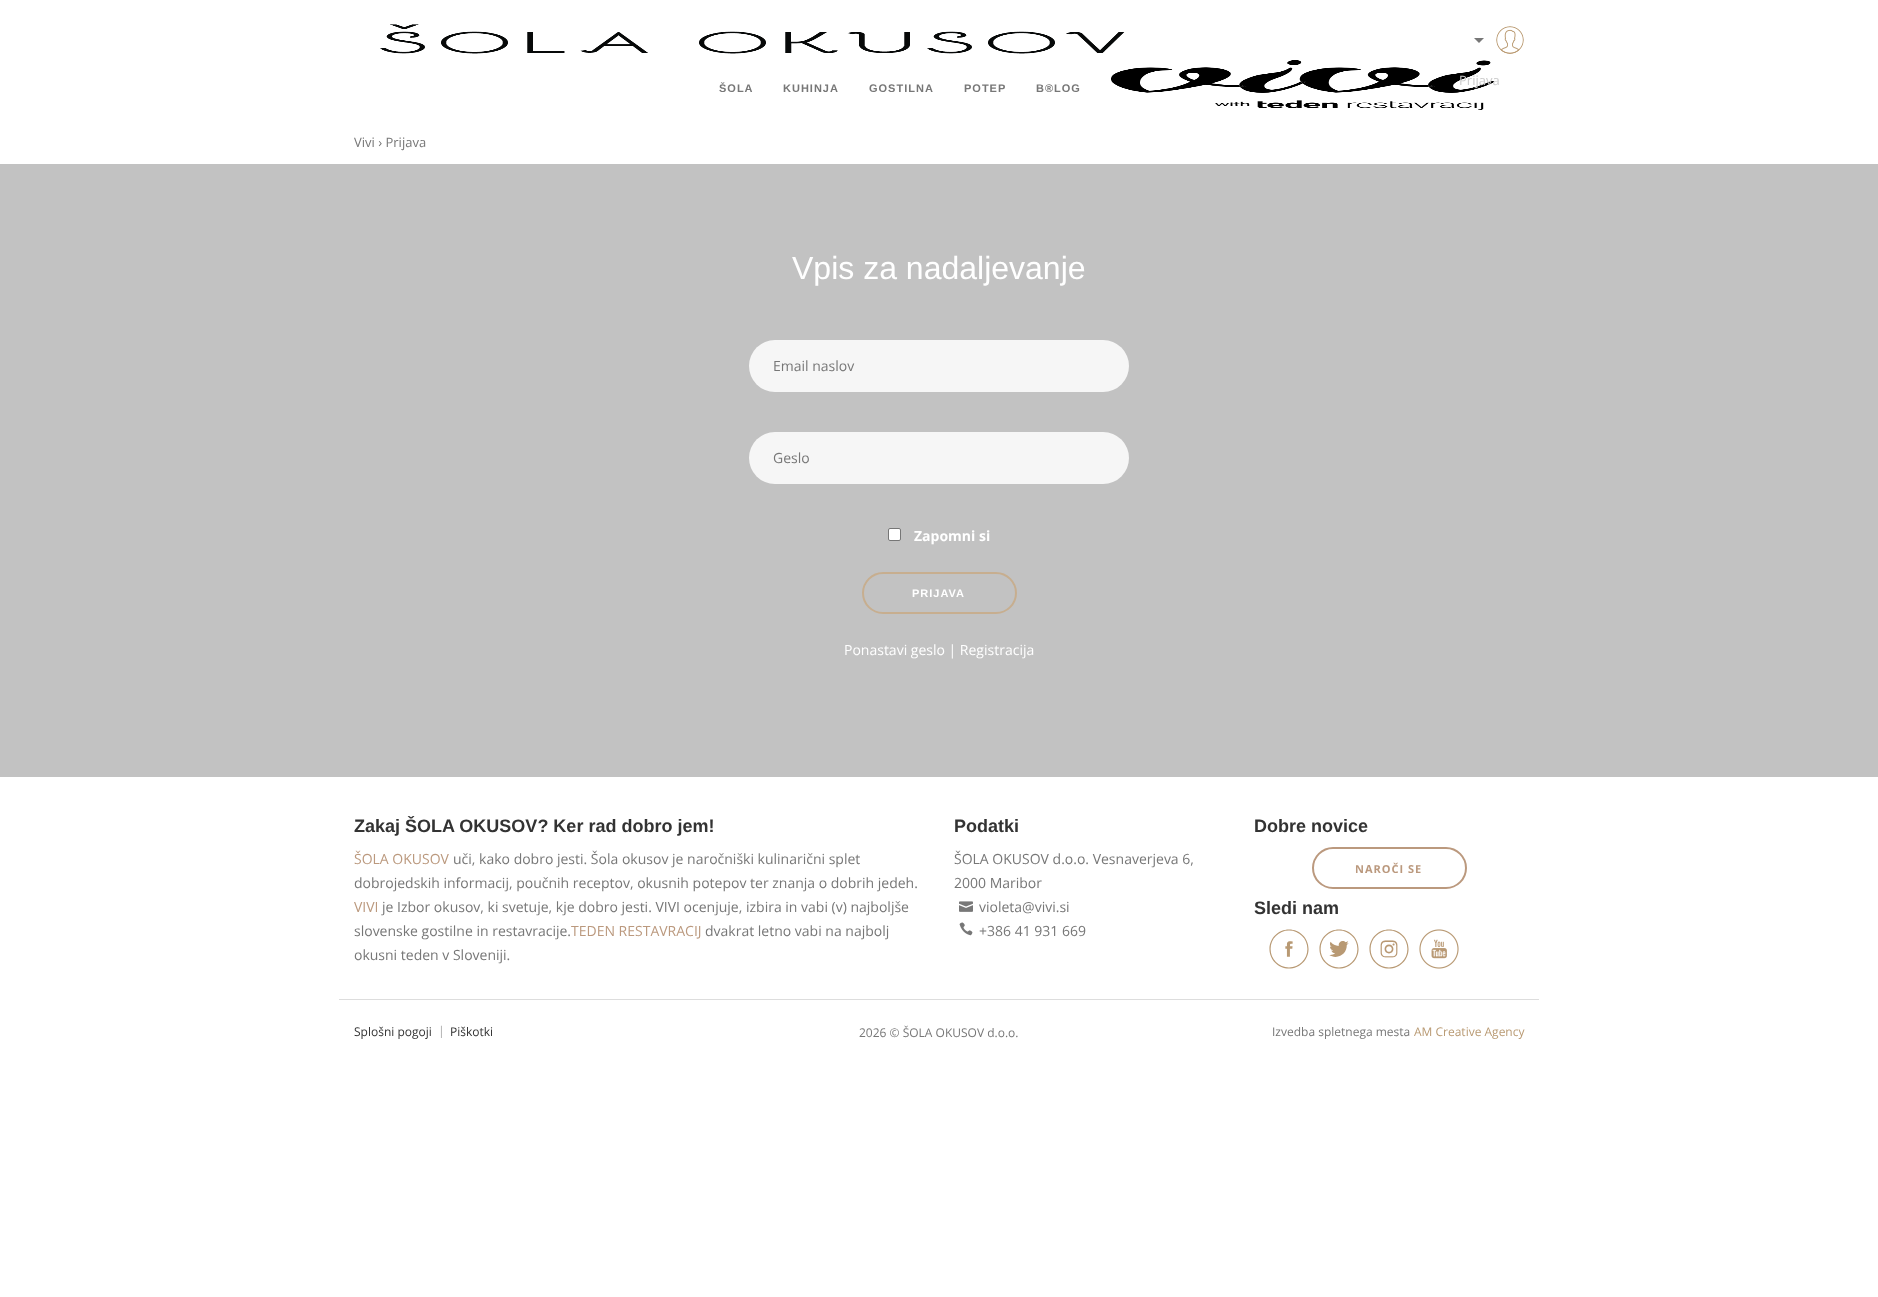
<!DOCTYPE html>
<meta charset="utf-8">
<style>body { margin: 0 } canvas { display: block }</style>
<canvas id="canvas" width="1878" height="1297"></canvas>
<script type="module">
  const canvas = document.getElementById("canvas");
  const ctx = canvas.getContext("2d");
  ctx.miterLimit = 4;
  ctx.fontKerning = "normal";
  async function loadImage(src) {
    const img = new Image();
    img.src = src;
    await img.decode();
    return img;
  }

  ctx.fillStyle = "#ffffff";
  ctx.fillRect(0, 0, 1878, 1297);
  ctx.drawImage(await loadImage("img1.png"), 380, 24, 745, 30);
  ctx.drawImage(await loadImage("img2.png"), 1111, 60, 383, 50);
  ctx.letterSpacing = "1px";
  ctx.font = "bold 11px Liberation Sans";
  ctx.fillStyle = "#777777";
  ctx.fillText("ŠOLA", 719, 92);
  ctx.fillText("KUHINJA", 783, 92);
  ctx.fillText("GOSTILNA", 869, 92);
  ctx.fillText("POTEP", 964, 92);
  ctx.fillText("B®LOG", 1036, 92);
  ctx.beginPath();
  ctx.moveTo(1474, 38);
  ctx.lineTo(1484, 38);
  ctx.lineTo(1479, 43);
  ctx.closePath();
  ctx.fill();
  ctx.drawImage(await loadImage("img3.png"), 1496, 26, 28, 28);
  ctx.letterSpacing = "0px";
  ctx.font = "13px Open Sans";
  ctx.fillStyle = "#cccccc";
  ctx.fillText("Prijava", 1459, 85);
  ctx.fillStyle = "#777777";
  ctx.fillText("Vivi › Prijava", 354, 147);
  ctx.fillStyle = "#c2c2c2";
  ctx.fillRect(0, 164, 1878, 613);
  ctx.font = "32px Liberation Sans";
  ctx.fillStyle = "#ffffff";
  ctx.fillText("Vpis za nadaljevanje", 792, 279);
  ctx.fillStyle = "#f6f6f6";
  ctx.beginPath();
  ctx.roundRect(749, 340, 380, 52, 26);
  ctx.fill();
  ctx.font = "14px Open Sans";
  ctx.fillStyle = "#777777";
  ctx.fillText("Email naslov", 773, 371);
  ctx.fillStyle = "#f6f6f6";
  ctx.beginPath();
  ctx.roundRect(749, 432, 380, 52, 26);
  ctx.fill();
  ctx.fillStyle = "#777777";
  ctx.fillText("Geslo", 773, 463);
  ctx.fillStyle = "#ffffff";
  ctx.beginPath();
  ctx.roundRect(888.5, 528.5, 12, 12, 1.5);
  ctx.fill();
  ctx.strokeStyle = "#767676";
  ctx.stroke();
  ctx.font = "bold 14px Open Sans";
  ctx.fillText("Zapomni si", 914, 541);
  ctx.beginPath();
  ctx.roundRect(863, 573, 153, 40, 20);
  ctx.strokeStyle = "#c7ae8f";
  ctx.lineWidth = 2;
  ctx.stroke();
  ctx.letterSpacing = "1px";
  ctx.font = "bold 11px Liberation Sans";
  ctx.fillText("PRIJAVA", 912, 597);
  ctx.letterSpacing = "0px";
  ctx.font = "14px Open Sans";
  ctx.fillText("Ponastavi geslo | Registracija", 844, 655);
  ctx.font = "bold 18px Liberation Sans";
  ctx.fillStyle = "#333333";
  ctx.fillText("Zakaj ŠOLA OKUSOV? Ker rad dobro jem!", 354, 832);
  ctx.font = "14px Open Sans";
  ctx.fillStyle = "#bb997e";
  ctx.fillText("ŠOLA OKUSOV", 354, 864);
  ctx.fillStyle = "#777777";
  ctx.fillText("uči, kako dobro jesti. Šola okusov je naročniški kulinarični splet", 453, 864);
  ctx.fillText("dobrojedskih informacij, poučnih receptov, okusnih potepov ter znanja o dobrih jedeh.", 354, 888);
  ctx.fillStyle = "#bb997e";
  ctx.fillText("VIVI", 354, 912);
  ctx.fillStyle = "#777777";
  ctx.fillText("je Izbor okusov, ki svetuje, kje dobro jesti. VIVI ocenjuje, izbira in vabi (v) najboljše", 382, 912);
  ctx.fillText("slovenske gostilne in restavracije.", 354, 936);
  ctx.fillStyle = "#bb997e";
  ctx.fillText("TEDEN RESTAVRACIJ", 571, 936);
  ctx.fillStyle = "#777777";
  ctx.fillText("dvakrat letno vabi na najbolj", 705, 936);
  ctx.fillText("okusni teden v Sloveniji.", 354, 960);
  ctx.font = "bold 18px Liberation Sans";
  ctx.fillStyle = "#333333";
  ctx.fillText("Podatki", 954, 832);
  ctx.font = "14px Open Sans";
  ctx.fillStyle = "#777777";
  ctx.fillText("ŠOLA OKUSOV d.o.o. Vesnaverjeva 6,", 954, 864);
  ctx.fillText("2000 Maribor", 954, 888);
  ctx.drawImage(await loadImage("img4.png"), 959, 901, 14, 11);
  ctx.fillText("violeta@vivi.si", 979, 912);
  ctx.drawImage(await loadImage("img5.png"), 959, 922, 14, 14);
  ctx.fillText("+386 41 931 669", 979, 936);
  ctx.font = "bold 18px Liberation Sans";
  ctx.fillStyle = "#333333";
  ctx.fillText("Dobre novice", 1254, 832);
  ctx.beginPath();
  ctx.roundRect(1313, 848, 153, 40, 20);
  ctx.strokeStyle = "#bb997e";
  ctx.stroke();
  ctx.letterSpacing = "1px";
  ctx.font = "bold 11px Open Sans";
  ctx.fillStyle = "#bb997e";
  ctx.fillText("NAROČI SE", 1355, 873);
  ctx.letterSpacing = "0px";
  ctx.font = "bold 18px Liberation Sans";
  ctx.fillStyle = "#333333";
  ctx.fillText("Sledi nam", 1254, 914);
  ctx.drawImage(await loadImage("img6.png"), 1269, 929, 40, 40);
  ctx.drawImage(await loadImage("img7.png"), 1319, 929, 40, 40);
  ctx.drawImage(await loadImage("img8.png"), 1369, 929, 40, 40);
  ctx.drawImage(await loadImage("img9.png"), 1419, 929, 40, 40);
  ctx.fillStyle = "#dddddd";
  ctx.fillRect(339, 999, 1200, 1);
  ctx.font = "12px Open Sans";
  ctx.fillStyle = "#333333";
  ctx.fillText("Splošni pogoji", 354, 1036);
  ctx.font = "300 12px Open Sans";
  ctx.fillStyle = "#777777";
  ctx.fillText("|", 438, 1035);
  ctx.font = "12px Open Sans";
  ctx.fillStyle = "#333333";
  ctx.fillText("Piškotki", 450, 1036);
  ctx.fillStyle = "#777777";
  ctx.fillText("2026 © ŠOLA OKUSOV d.o.o.", 859, 1037);
  ctx.fillText("Izvedba spletnega mesta", 1272, 1036);
  ctx.fillStyle = "#b99a73";
  ctx.fillText("AM Creative Agency", 1414, 1036);
</script>
